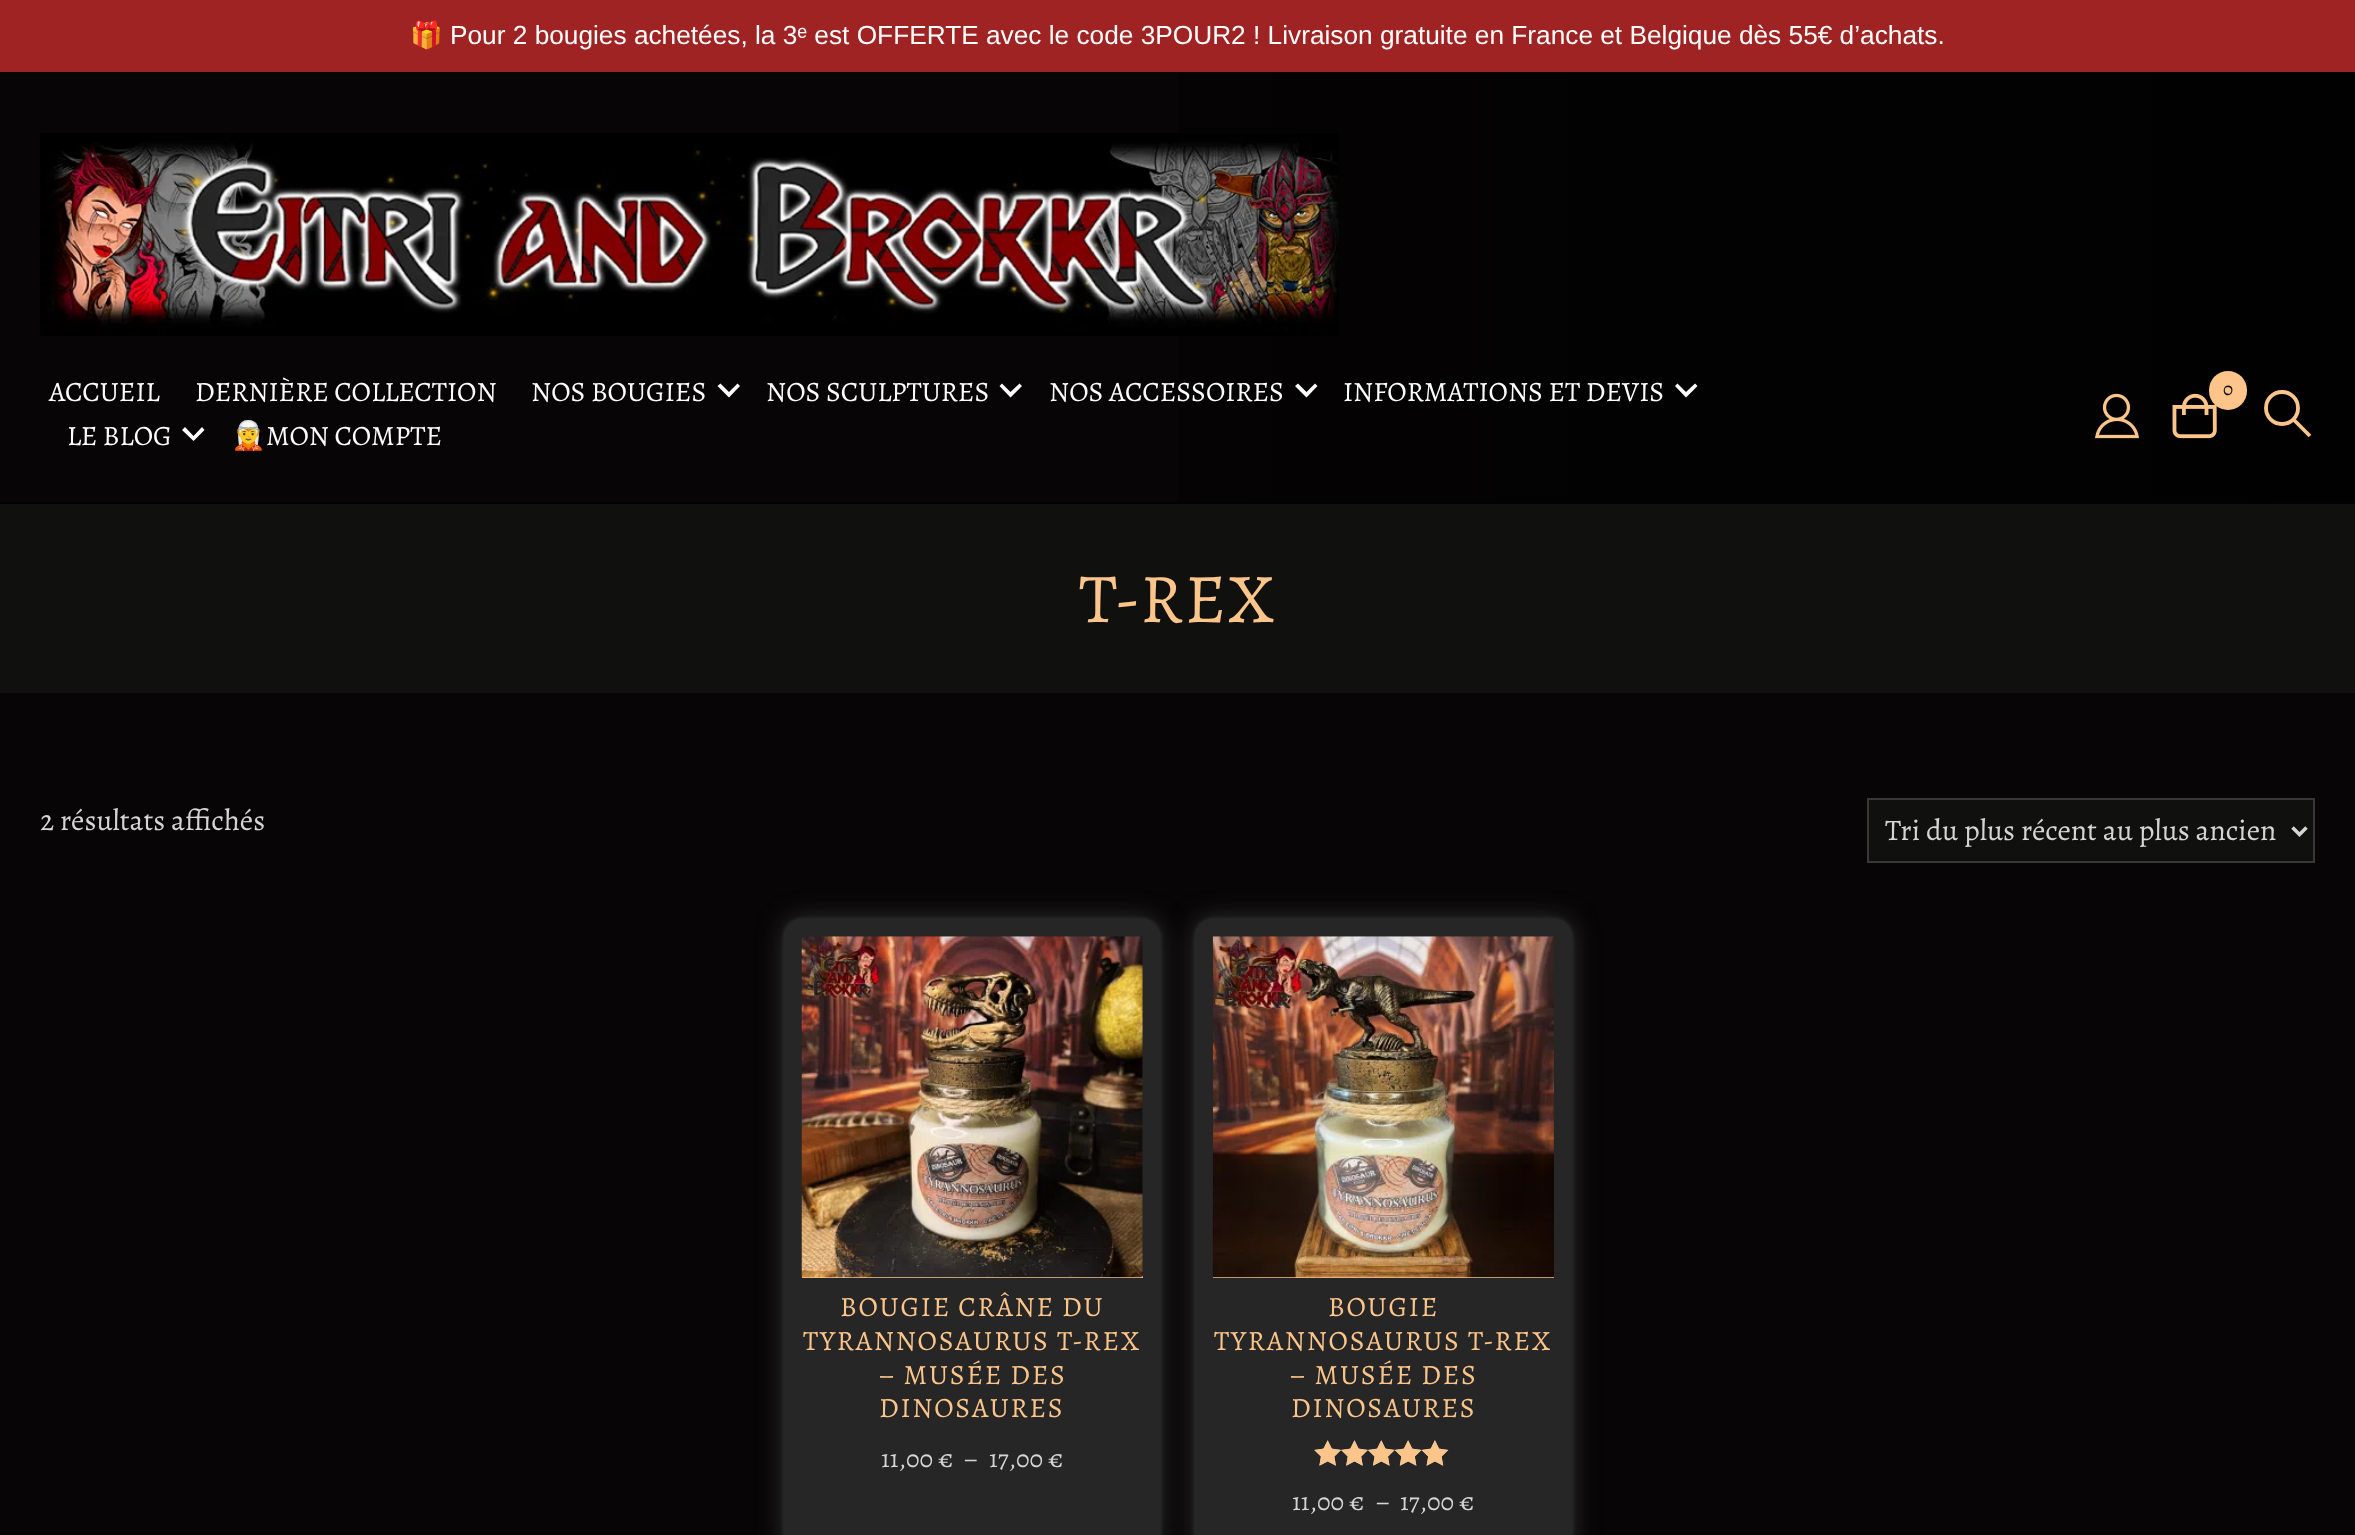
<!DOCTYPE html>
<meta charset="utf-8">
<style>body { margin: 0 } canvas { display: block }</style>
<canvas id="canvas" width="2355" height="1535"></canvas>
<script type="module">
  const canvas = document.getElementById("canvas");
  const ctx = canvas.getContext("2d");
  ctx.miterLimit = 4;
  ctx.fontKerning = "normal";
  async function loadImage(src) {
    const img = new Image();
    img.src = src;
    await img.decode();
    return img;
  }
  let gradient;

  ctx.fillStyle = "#070506";
  ctx.fillRect(0, 0, 2355, 1535);
  ctx.fillStyle = "#a02323";
  ctx.fillRect(0, 0, 2355, 72);
  ctx.font = "26.25px Noto Color Emoji";
  ctx.fillStyle = "#ffffff";
  ctx.fillText("🎁", 410, 44);
  ctx.font = "26.25px Liberation Sans";
  ctx.fillText("Pour 2 bougies achetées, la 3ᵉ est OFFERTE avec le code 3POUR2 ! Livraison gratuite en France et Belgique dès 55€ d’achats.", 450, 44);
  gradient = ctx.createLinearGradient(0, 287, 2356, 287);
  gradient.addColorStop(0, "#070506");
  gradient.addColorStop(1, "#020101");
  ctx.fillStyle = gradient;
  ctx.fillRect(1178, 72, 1177, 430);
  ctx.fillStyle = "#020202";
  ctx.fillRect(0, 502, 2355, 2);
  ctx.drawImage(await loadImage("img1.png"), 40, 133, 1299, 203);
  ctx.font = "28px Alegreya";
  ctx.fillStyle = "#ffffff";
  ctx.fillText("ACCUEIL", 49, 401);
  ctx.fillText("DERNIÈRE COLLECTION", 195, 401);
  ctx.fillText("NOS BOUGIES", 531, 401);
  ctx.beginPath();
  ctx.moveTo(717.5, 386);
  ctx.lineTo(720.5, 383.5);
  ctx.lineTo(729, 392);
  ctx.lineTo(737.5, 383.5);
  ctx.lineTo(740, 386);
  ctx.lineTo(729, 397.5);
  ctx.closePath();
  ctx.fill();
  ctx.fillText("NOS SCULPTURES", 766, 401);
  ctx.beginPath();
  ctx.moveTo(999.5, 386);
  ctx.lineTo(1002, 383.5);
  ctx.lineTo(1010.5, 392);
  ctx.lineTo(1019.5, 383.5);
  ctx.lineTo(1022, 386);
  ctx.lineTo(1010.5, 397.5);
  ctx.closePath();
  ctx.fill();
  ctx.fillText("NOS ACCESSOIRES", 1049, 401);
  ctx.beginPath();
  ctx.moveTo(1295, 386);
  ctx.lineTo(1298, 383.5);
  ctx.lineTo(1306.5, 392);
  ctx.lineTo(1315, 383.5);
  ctx.lineTo(1317.5, 386);
  ctx.lineTo(1306.5, 397.5);
  ctx.closePath();
  ctx.fill();
  ctx.fillText("INFORMATIONS ET DEVIS", 1343, 401);
  ctx.beginPath();
  ctx.moveTo(1675, 386);
  ctx.lineTo(1677.5, 383.5);
  ctx.lineTo(1686, 392);
  ctx.lineTo(1695, 383.5);
  ctx.lineTo(1697.5, 386);
  ctx.lineTo(1686, 397.5);
  ctx.closePath();
  ctx.fill();
  ctx.fillText("LE BLOG", 67, 445);
  ctx.beginPath();
  ctx.moveTo(182, 430);
  ctx.lineTo(185, 427);
  ctx.lineTo(193.5, 436);
  ctx.lineTo(202, 427);
  ctx.lineTo(204.5, 430);
  ctx.lineTo(193.5, 441);
  ctx.closePath();
  ctx.fill();
  ctx.font = "28px Noto Color Emoji";
  ctx.fillText("🧝", 231, 445);
  ctx.font = "28px Alegreya";
  ctx.fillText("MON COMPTE", 266, 445);
  ctx.drawImage(await loadImage("img2.png"), 2095, 393, 44, 46);
  ctx.drawImage(await loadImage("img3.png"), 2172, 393, 45, 46);
  ctx.fillStyle = "#fdc58a";
  ctx.beginPath();
  ctx.roundRect(2209, 371, 38, 39, 19);
  ctx.fill();
  ctx.font = "19px Alegreya";
  ctx.fillStyle = "#0a0a0a";
  ctx.fillText("0", 2223, 395);
  ctx.beginPath();
  ctx.moveTo(2282, 424);
  ctx.bezierCurveTo(2291, 424, 2298, 417, 2298, 408);
  ctx.bezierCurveTo(2298, 399, 2291, 392, 2282, 392);
  ctx.bezierCurveTo(2273, 392, 2266, 399, 2266, 408);
  ctx.bezierCurveTo(2266, 417, 2273, 424, 2282, 424);
  ctx.closePath();
  ctx.moveTo(2310, 436);
  ctx.lineTo(2293, 419);
  ctx.strokeStyle = "#fdc58a";
  ctx.lineWidth = 3.8;
  ctx.stroke();
  ctx.fillStyle = "#10100e";
  ctx.fillRect(0, 504, 2355, 189);
  ctx.letterSpacing = "1.75px";
  ctx.font = "70px Alegreya";
  ctx.fillStyle = "#fdc58a";
  ctx.fillText("T-REX", 1079, 622);
  ctx.letterSpacing = "0px";
  ctx.font = "29.75px Alegreya";
  ctx.fillStyle = "#d5d5d5";
  ctx.fillText("2 résultats affichés", 40, 830);
  ctx.fillStyle = "#10100e";
  ctx.beginPath();
  ctx.rect(1868, 799, 446, 63);
  ctx.fill();
  ctx.strokeStyle = "#383838";
  ctx.lineWidth = 2;
  ctx.stroke();
  ctx.beginPath();
  ctx.moveTo(2292.5, 827.5);
  ctx.lineTo(2299.5, 834.5);
  ctx.lineTo(2306.5, 827.5);
  ctx.strokeStyle = "#d5d5d5";
  ctx.lineWidth = 3.5;
  ctx.stroke();
  ctx.fillStyle = "#d5d5d5";
  ctx.fillText("Tri du plus récent au plus ancien", 1885, 840);
  ctx.fillStyle = "#343434";
  ctx.filter = "blur(13px)";
  ctx.beginPath();
  ctx.roundRect(784, 919, 376, 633, 18);
  ctx.fill();
  ctx.filter = "none";
  ctx.filter = "blur(2px)";
  ctx.beginPath();
  ctx.roundRect(784, 919, 376, 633, 18);
  ctx.fill();
  ctx.filter = "none";
  ctx.fillStyle = "#262626";
  ctx.beginPath();
  ctx.roundRect(784, 919, 376, 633, 18);
  ctx.fill();
  ctx.fillStyle = "#fdc58a";
  ctx.fillRect(802, 1276, 341, 2);
  ctx.drawImage(await loadImage("img4.png"), 801, 936, 342, 342);
  ctx.letterSpacing = "1.75px";
  ctx.font = "28px Alegreya";
  ctx.fillText("BOUGIE CRÂNE DU", 840, 1316);
  ctx.fillText("TYRANNOSAURUS T-REX", 803, 1350);
  ctx.fillText("– MUSÉE DES", 878, 1384);
  ctx.fillText("DINOSAURES", 879, 1417);
  ctx.letterSpacing = "0px";
  ctx.font = "25.5px Alegreya";
  ctx.fillStyle = "#d5d5d5";
  ctx.fillText("11,00 €", 881, 1467);
  ctx.fillText("–", 963, 1467);
  ctx.fillText("17,00 €", 989, 1467);
  ctx.fillStyle = "#343434";
  ctx.filter = "blur(13px)";
  ctx.beginPath();
  ctx.roundRect(1195, 919, 377, 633, 18);
  ctx.fill();
  ctx.filter = "none";
  ctx.filter = "blur(2px)";
  ctx.beginPath();
  ctx.roundRect(1195, 919, 377, 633, 18);
  ctx.fill();
  ctx.filter = "none";
  ctx.fillStyle = "#262626";
  ctx.beginPath();
  ctx.roundRect(1195, 919, 377, 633, 18);
  ctx.fill();
  ctx.fillStyle = "#fdc58a";
  ctx.fillRect(1213, 1276, 341, 2);
  ctx.drawImage(await loadImage("img5.png"), 1212, 936, 342, 342);
  ctx.letterSpacing = "1.75px";
  ctx.font = "28px Alegreya";
  ctx.fillText("BOUGIE", 1328, 1316);
  ctx.fillText("TYRANNOSAURUS T-REX", 1214, 1350);
  ctx.fillText("– MUSÉE DES", 1289, 1384);
  ctx.fillText("DINOSAURES", 1291, 1417);
  ctx.drawImage(await loadImage("img6.png"), 1314, 1440, 135, 26);
  ctx.drawImage(await loadImage("img7.png"), 1314, 1440, 134, 26);
  ctx.letterSpacing = "0px";
  ctx.font = "25.5px Alegreya";
  ctx.fillStyle = "#d5d5d5";
  ctx.fillText("11,00 €", 1292, 1510);
  ctx.fillText("–", 1375, 1510);
  ctx.fillText("17,00 €", 1400, 1510);
</script>
